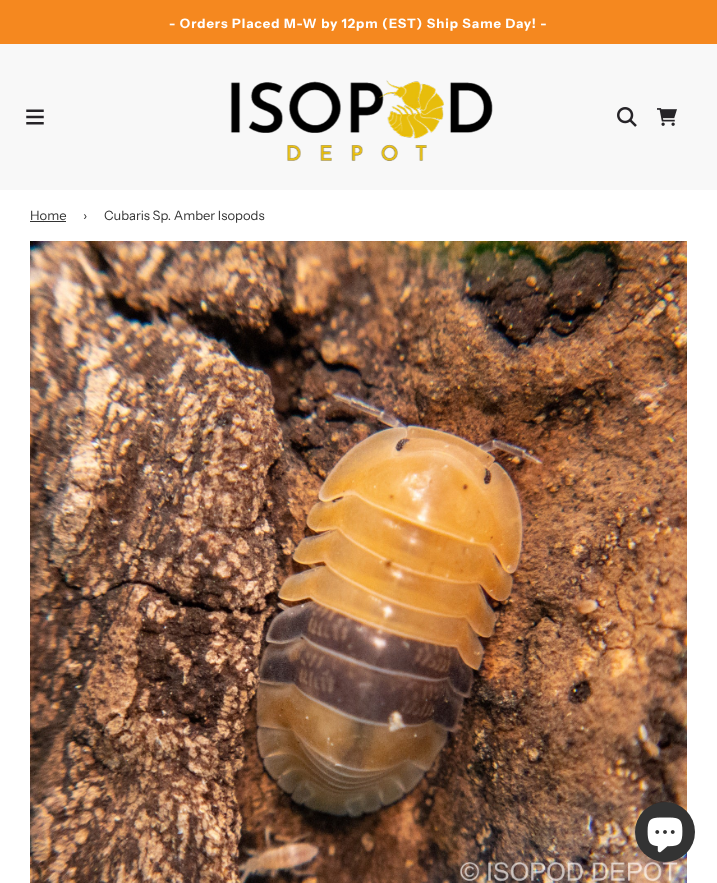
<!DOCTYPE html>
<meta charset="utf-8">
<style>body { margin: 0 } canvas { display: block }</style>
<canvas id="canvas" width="717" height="883"></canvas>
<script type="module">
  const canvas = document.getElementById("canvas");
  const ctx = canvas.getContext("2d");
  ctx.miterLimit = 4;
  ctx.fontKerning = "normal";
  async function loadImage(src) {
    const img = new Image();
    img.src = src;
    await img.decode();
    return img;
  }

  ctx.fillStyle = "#ffffff";
  ctx.fillRect(0, 0, 717, 883);
  ctx.fillStyle = "#f5881f";
  ctx.fillRect(0, 0, 717, 44);
  ctx.letterSpacing = "1px";
  ctx.font = "bold 13px Instrument Sans";
  ctx.fillStyle = "#ffffff";
  ctx.fillText("- Orders Placed M-W by 12pm (EST) Ship Same Day! -", 169, 28);
  ctx.fillStyle = "#f8f8f8";
  ctx.fillRect(0, 44, 717, 146);
  ctx.drawImage(await loadImage("img1.png"), 26, 109, 18, 16);
  ctx.drawImage(await loadImage("img2.png"), 230, 80, 263, 81);
  ctx.drawImage(await loadImage("img3.png"), 617, 107, 20, 20);
  ctx.drawImage(await loadImage("img4.png"), 657, 108, 20, 18);
  ctx.letterSpacing = "0px";
  ctx.font = "13px Instrument Sans";
  ctx.fillStyle = "#333333";
  ctx.fillText("Home", 30, 220);
  ctx.fillRect(30, 221, 36, 1);
  ctx.fillText("›", 83, 220);
  ctx.fillText("Cubaris Sp. Amber Isopods", 104, 220);
  ctx.drawImage(await loadImage("img5.png"), 30, 241, 657, 642);
  ctx.beginPath();
  ctx.arc(665, 832, 30, 0, Math.PI * 2);
  ctx.fill();
  ctx.drawImage(await loadImage("img6.png"), 647, 817, 36, 36);
</script>
